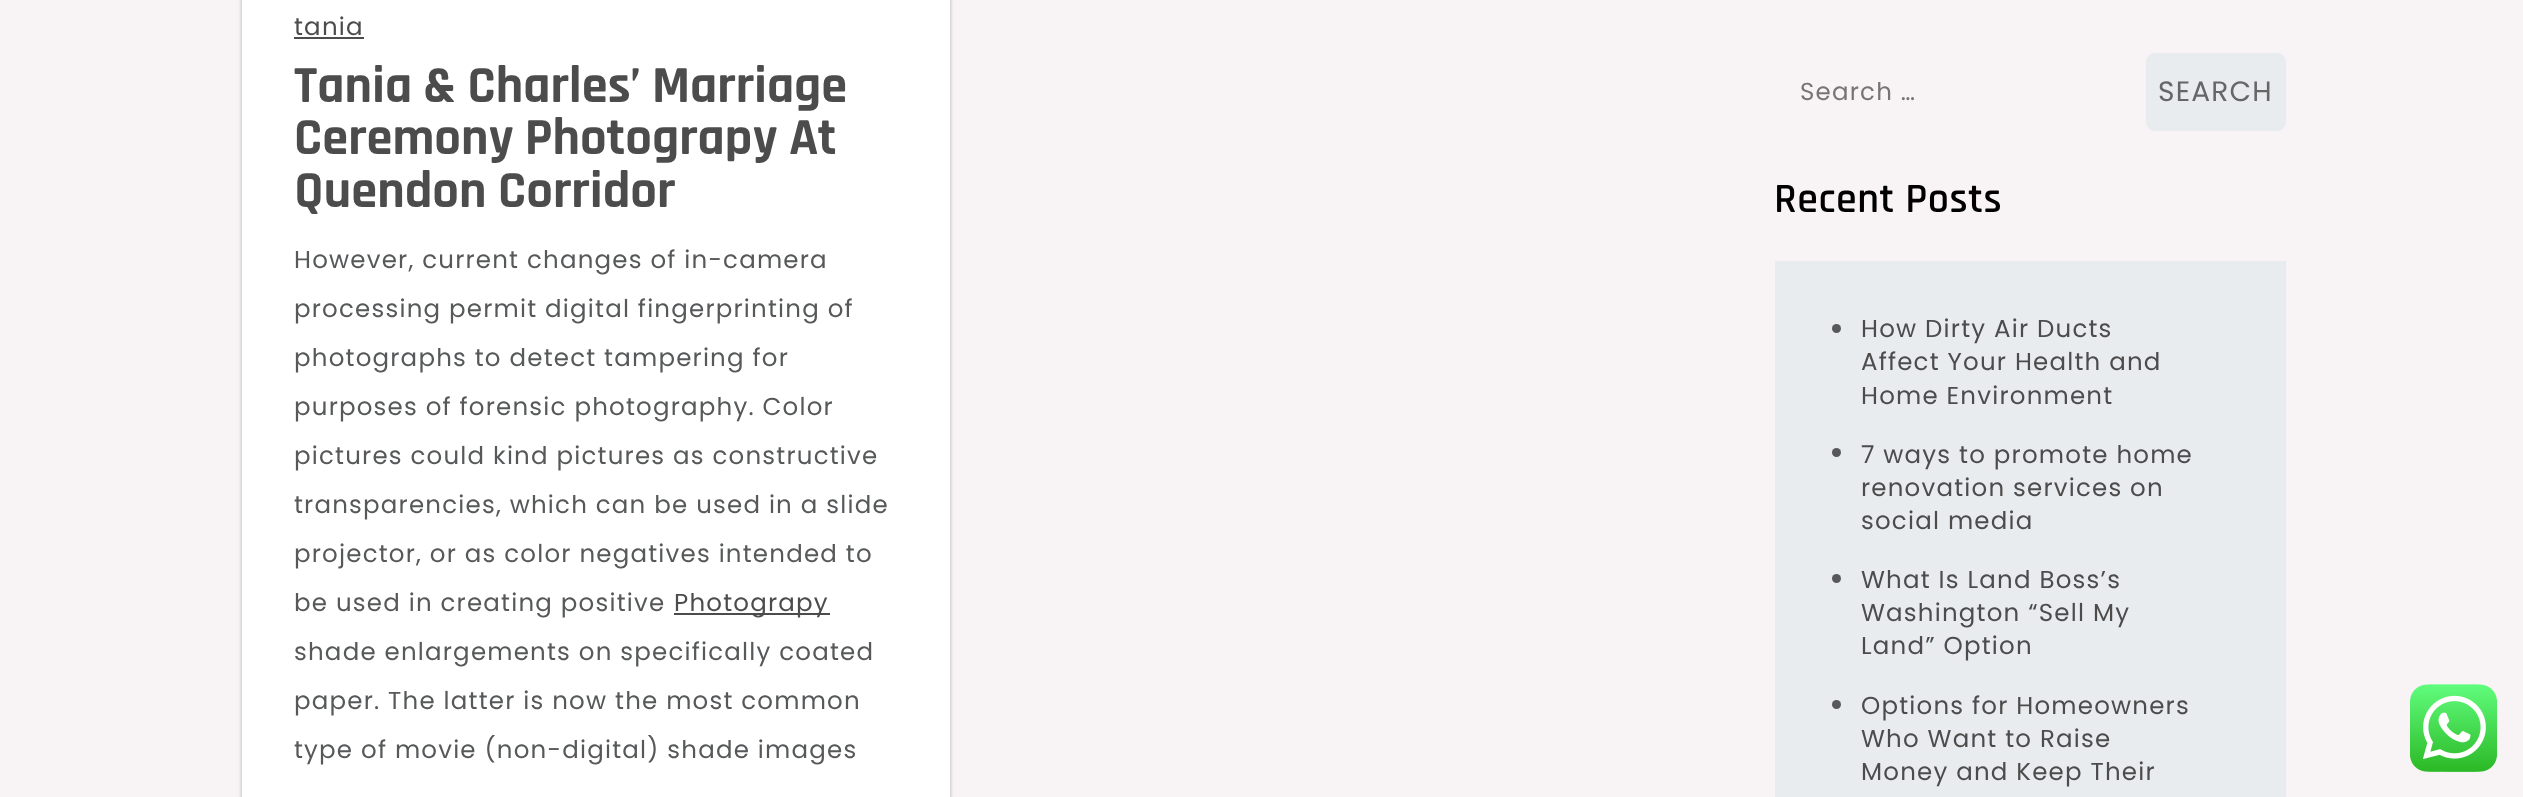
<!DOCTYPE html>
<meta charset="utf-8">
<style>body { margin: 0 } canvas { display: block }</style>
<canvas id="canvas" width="2523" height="797"></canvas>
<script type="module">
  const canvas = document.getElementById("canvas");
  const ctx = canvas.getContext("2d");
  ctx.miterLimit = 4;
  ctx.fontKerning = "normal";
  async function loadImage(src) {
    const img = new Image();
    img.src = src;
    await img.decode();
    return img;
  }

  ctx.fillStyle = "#f8f3f4";
  ctx.fillRect(0, 0, 2523, 797);
  ctx.fillStyle = "rgba(0, 0, 0, 0.18)";
  ctx.filter = "blur(2px)";
  ctx.beginPath();
  ctx.rect(242, -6, 708, 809);
  ctx.fill();
  ctx.filter = "none";
  ctx.fillStyle = "rgba(0, 0, 0, 0.1)";
  ctx.filter = "blur(2px)";
  ctx.beginPath();
  ctx.rect(242, -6, 708, 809);
  ctx.fill();
  ctx.filter = "none";
  ctx.fillStyle = "#ffffff";
  ctx.fillRect(242, 0, 708, 797);
  ctx.letterSpacing = "1.2px";
  ctx.font = "24.5px Poppins";
  ctx.fillStyle = "#4c4c4c";
  ctx.fillText("tania", 294, 35);
  ctx.fillRect(294, 37, 70, 2);
  ctx.letterSpacing = "0px";
  ctx.font = "bold 52.5px Rajdhani";
  ctx.fillText("Tania & Charles’ Marriage", 294, 102);
  ctx.fillText("Ceremony Photograpy At", 294, 154);
  ctx.fillText("Quendon Corridor", 294, 207);
  ctx.letterSpacing = "1.2px";
  ctx.font = "24.5px Poppins";
  ctx.fillStyle = "#565859";
  ctx.fillText("However, current changes of in-camera", 294, 268);
  ctx.fillText("processing permit digital fingerprinting of", 294, 317);
  ctx.fillText("photographs to detect tampering for", 294, 366);
  ctx.fillText("purposes of forensic photography. Color", 294, 415);
  ctx.fillText("pictures could kind pictures as constructive", 294, 464);
  ctx.fillText("transparencies, which can be used in a slide", 294, 513);
  ctx.fillText("projector, or as color negatives intended to", 294, 562);
  ctx.fillText("be used in creating positive", 294, 611);
  ctx.fillStyle = "#4c4c4c";
  ctx.fillRect(674, 613, 156, 2);
  ctx.fillText("Photograpy", 674, 611);
  ctx.fillStyle = "#565859";
  ctx.fillText("shade enlargements on specifically coated", 294, 660);
  ctx.fillText("paper. The latter is now the most common", 294, 709);
  ctx.fillText("type of movie (non-digital) shade images", 294, 758);
  ctx.fillStyle = "#757575";
  ctx.fillText("Search …", 1800, 100);
  ctx.fillStyle = "#e9ecef";
  ctx.beginPath();
  ctx.roundRect(2146, 53, 140, 78, 9);
  ctx.fill();
  ctx.font = "28px Poppins";
  ctx.fillStyle = "#666666";
  ctx.fillText("SEARCH", 2158, 101);
  ctx.letterSpacing = "0.5px";
  ctx.font = "600 42px Rajdhani";
  ctx.fillStyle = "#000000";
  ctx.fillText("Recent Posts", 1774, 212);
  ctx.fillStyle = "#e9ecef";
  ctx.fillRect(1775, 261, 511, 536);
  ctx.fillStyle = "#565859";
  ctx.beginPath();
  ctx.arc(1836.5, 328.5, 4.5, 0, Math.PI * 2);
  ctx.fill();
  ctx.letterSpacing = "1.2px";
  ctx.font = "24.5px Poppins";
  ctx.fillStyle = "#4c4c4c";
  ctx.fillText("How Dirty Air Ducts", 1861, 337);
  ctx.fillText("Affect Your Health and", 1861, 370);
  ctx.fillText("Home Environment", 1861, 404);
  ctx.fillStyle = "#565859";
  ctx.beginPath();
  ctx.arc(1836.5, 452.5, 4.5, 0, Math.PI * 2);
  ctx.fill();
  ctx.fillStyle = "#4c4c4c";
  ctx.fillText("7 ways to promote home", 1861, 463);
  ctx.fillText("renovation services on", 1861, 496);
  ctx.fillText("social media", 1861, 529);
  ctx.fillStyle = "#565859";
  ctx.beginPath();
  ctx.arc(1836.5, 578.5, 4.5, 0, Math.PI * 2);
  ctx.fill();
  ctx.fillStyle = "#4c4c4c";
  ctx.fillText("What Is Land Boss’s", 1861, 588);
  ctx.fillText("Washington “Sell My", 1861, 621);
  ctx.fillText("Land” Option", 1861, 654);
  ctx.fillStyle = "#565859";
  ctx.beginPath();
  ctx.arc(1836.5, 704.5, 4.5, 0, Math.PI * 2);
  ctx.fill();
  ctx.fillStyle = "#4c4c4c";
  ctx.fillText("Options for Homeowners", 1861, 714);
  ctx.fillText("Who Want to Raise", 1861, 747);
  ctx.fillText("Money and Keep Their", 1861, 780);
  ctx.drawImage(await loadImage("img1.png"), 2410, 684, 87, 88);
</script>
